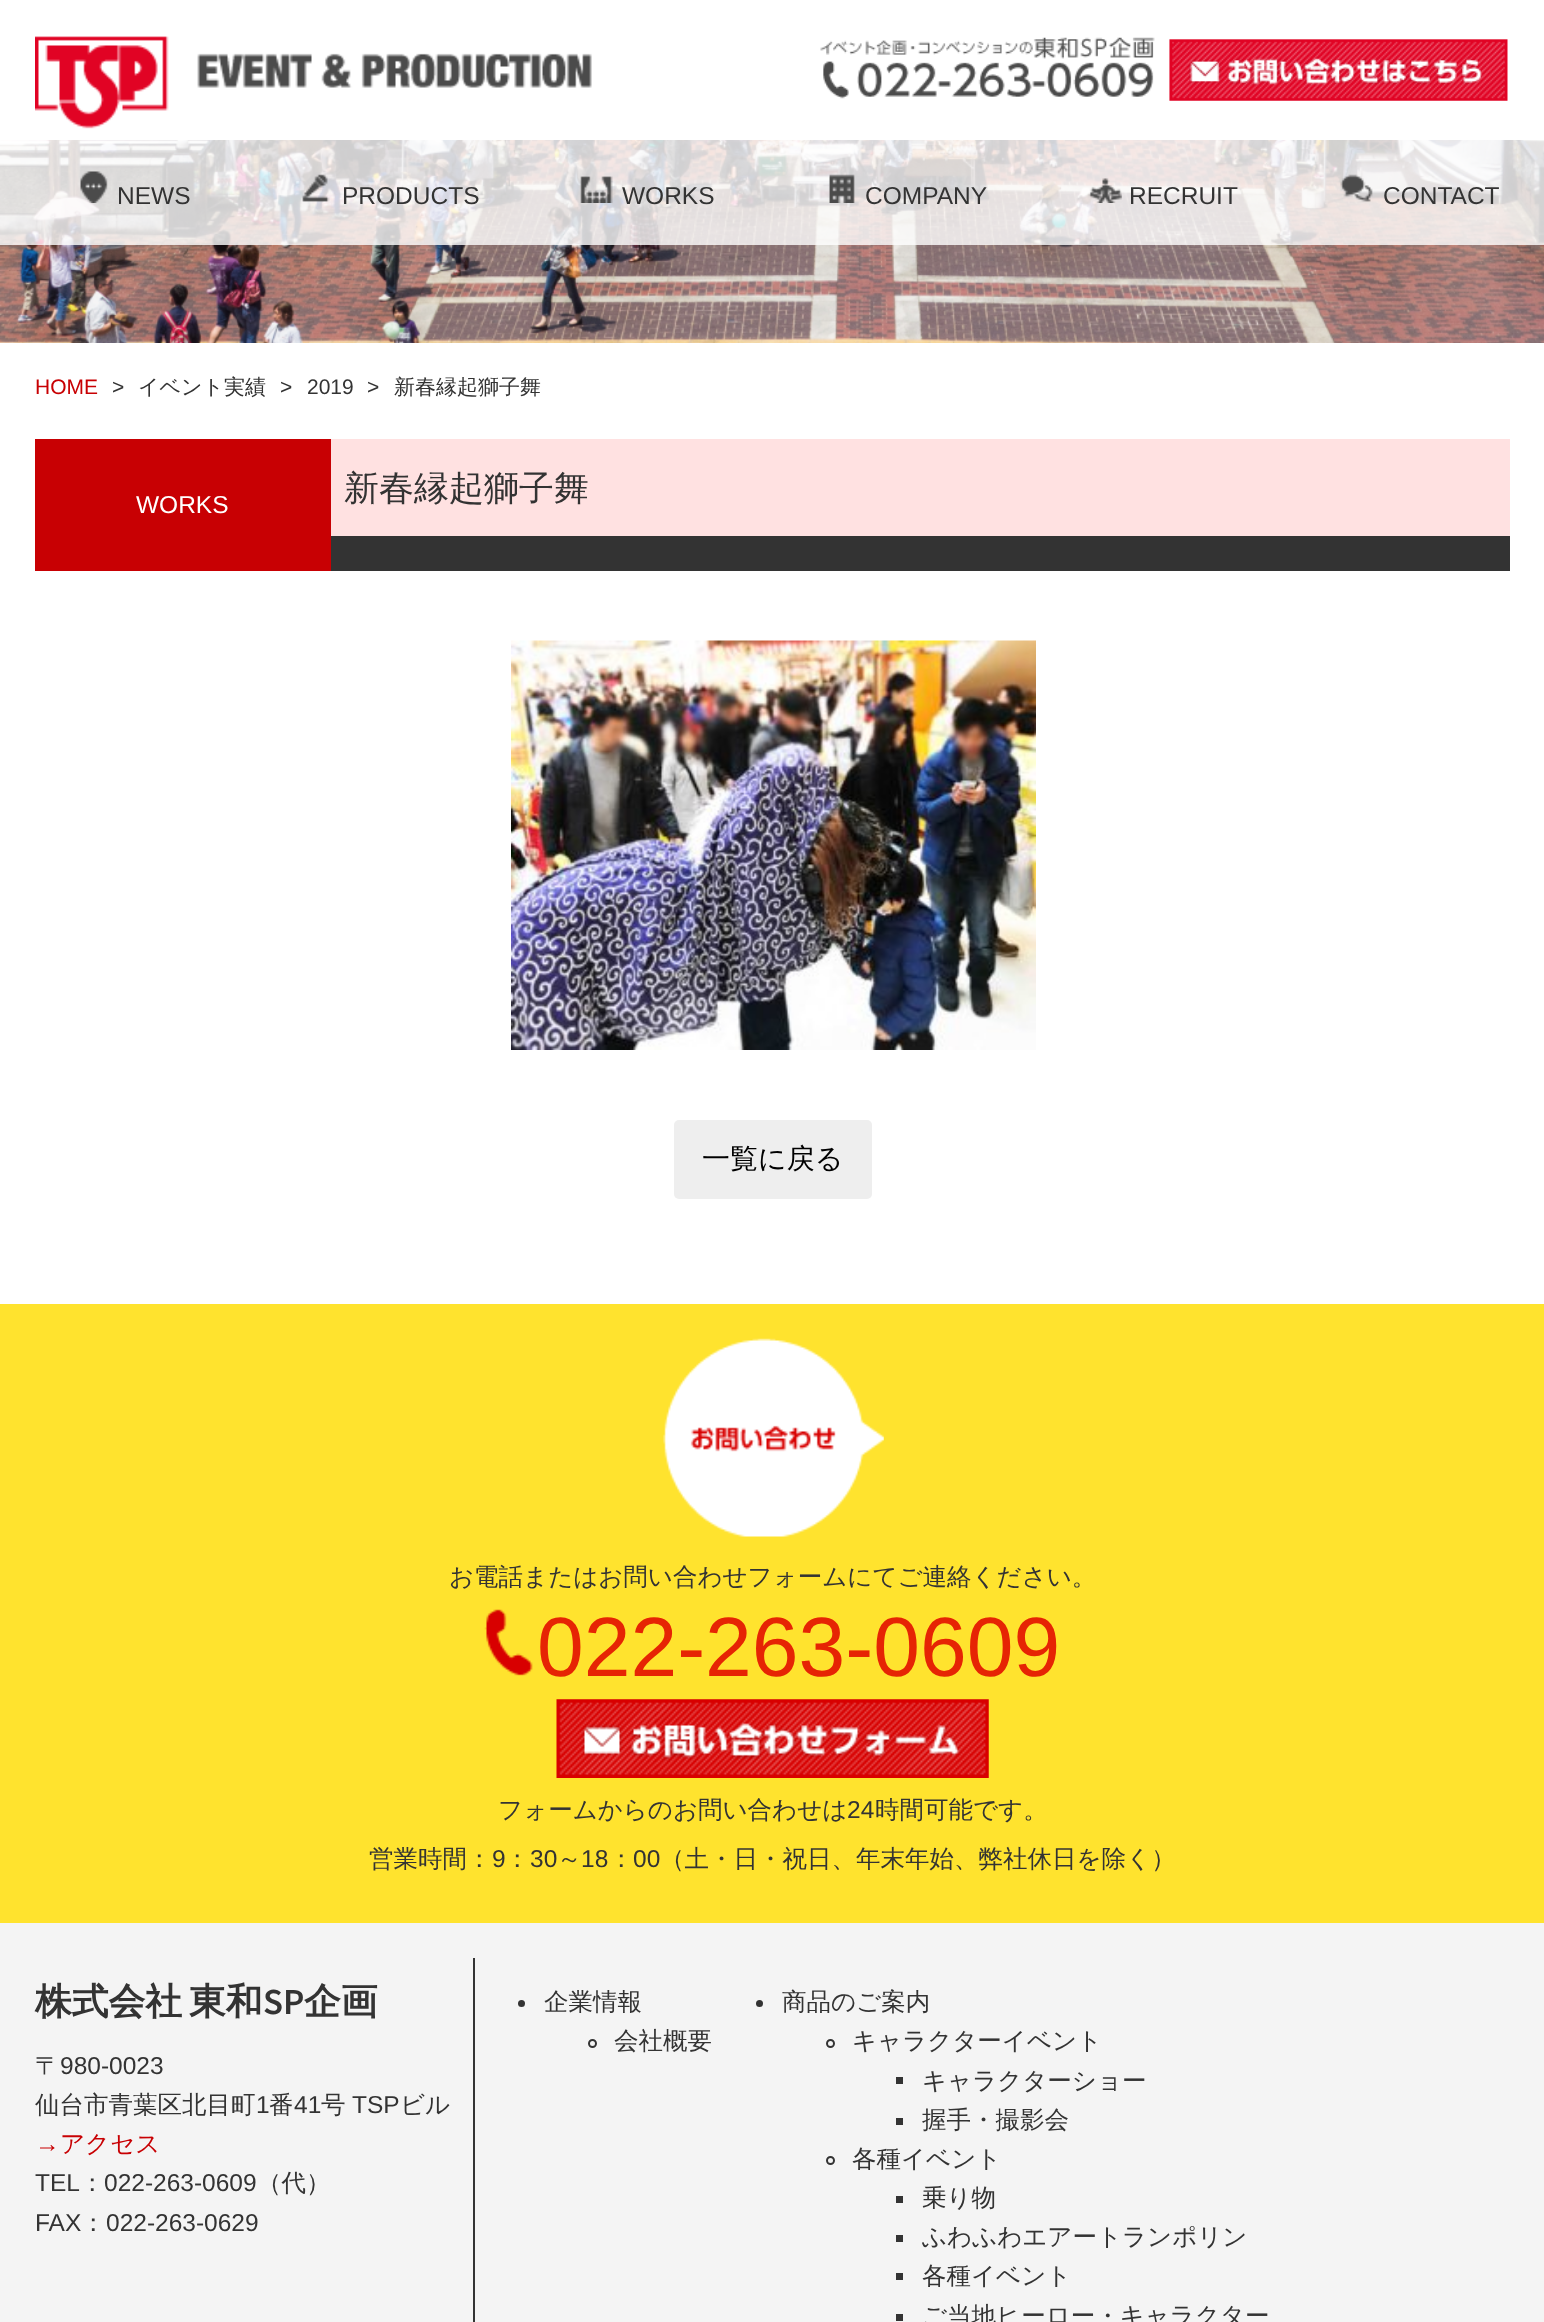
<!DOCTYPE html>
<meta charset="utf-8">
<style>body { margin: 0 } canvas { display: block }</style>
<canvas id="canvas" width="1544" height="2322"></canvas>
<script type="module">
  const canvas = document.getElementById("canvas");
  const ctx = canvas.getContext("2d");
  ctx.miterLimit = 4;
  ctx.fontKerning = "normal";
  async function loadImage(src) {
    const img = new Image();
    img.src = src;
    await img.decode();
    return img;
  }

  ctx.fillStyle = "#ffffff";
  ctx.fillRect(0, 0, 1544, 2322);
  ctx.drawImage(await loadImage("img10.png"), 0, 140, 1544, 203);
  ctx.fillStyle = "rgba(255, 255, 255, 0.8)";
  ctx.fillRect(0, 140, 1544, 105);
  ctx.drawImage(await loadImage("img1.png"), 35, 36, 557, 93);
  ctx.drawImage(await loadImage("img2.png"), 820, 37, 335, 62);
  ctx.drawImage(await loadImage("img3.png"), 1169, 39, 339, 62);
  ctx.drawImage(await loadImage("img4.png"), 80, 171, 28, 32);
  ctx.font = "24.5px Liberation Sans";
  ctx.fillStyle = "#333333";
  ctx.fillText("NEWS", 117, 204);
  ctx.drawImage(await loadImage("img5.png"), 302, 174, 28, 28);
  ctx.fillText("PRODUCTS", 342, 204);
  ctx.drawImage(await loadImage("img6.png"), 580, 176, 33, 27);
  ctx.fillText("WORKS", 622, 204);
  ctx.drawImage(await loadImage("img7.png"), 829, 174, 26, 29);
  ctx.fillText("COMPANY", 865, 204);
  ctx.drawImage(await loadImage("img8.png"), 1088, 178, 34, 25);
  ctx.fillText("RECRUIT", 1129, 204);
  ctx.drawImage(await loadImage("img9.png"), 1340, 174, 33, 28);
  ctx.fillText("CONTACT", 1383, 204);
  ctx.font = "21px Liberation Sans";
  ctx.fillStyle = "#c80003";
  ctx.fillText("HOME", 35, 394);
  ctx.fillStyle = "#333333";
  ctx.fillText(">", 112, 394);
  ctx.font = "500 21px WenQuanYi Zen Hei";
  ctx.fillText("イベント実績", 138, 394);
  ctx.font = "21px Liberation Sans";
  ctx.fillText(">", 280, 394);
  ctx.fillText("2019", 307, 394);
  ctx.fillText(">", 367, 394);
  ctx.font = "500 21px WenQuanYi Zen Hei";
  ctx.fillText("新春縁起獅子舞", 394, 394);
  ctx.fillStyle = "#ffe1e1";
  ctx.fillRect(331, 439, 1179, 97);
  ctx.fillStyle = "#c80003";
  ctx.fillRect(35, 439, 296, 132);
  ctx.font = "24.5px Liberation Sans";
  ctx.fillStyle = "#ffffff";
  ctx.fillText("WORKS", 136, 513);
  ctx.font = "500 35px WenQuanYi Zen Hei";
  ctx.fillStyle = "#333333";
  ctx.fillText("新春縁起獅子舞", 344, 500);
  ctx.fillRect(331, 536, 1179, 35);
  ctx.drawImage(await loadImage("img11.png"), 511, 640, 525, 410);
  ctx.fillStyle = "#eeeeee";
  ctx.beginPath();
  ctx.roundRect(674, 1120, 198, 79, 5);
  ctx.fill();
  ctx.font = "500 28px WenQuanYi Zen Hei";
  ctx.fillStyle = "#000000";
  ctx.fillText("一覧に戻る", 702, 1168);
  ctx.fillStyle = "#ffe32e";
  ctx.fillRect(0, 1304, 1544, 619);
  ctx.drawImage(await loadImage("img12.png"), 663, 1338, 221, 199);
  ctx.font = "500 24.5px WenQuanYi Zen Hei";
  ctx.fillStyle = "#333333";
  ctx.fillText("お電話またはお問い合わせフォームにてご連絡ください。", 449, 1585);
  ctx.drawImage(await loadImage("img13.png"), 484, 1609, 49, 67);
  ctx.font = "84px Liberation Sans";
  ctx.fillStyle = "#e62404";
  ctx.fillText("022-263-0609", 537, 1676);
  ctx.drawImage(await loadImage("img14.png"), 556, 1699, 433, 79);
  ctx.font = "500 24.5px WenQuanYi Zen Hei";
  ctx.fillStyle = "#333333";
  ctx.fillText("フォームからのお問い合わせは", 498, 1818);
  ctx.font = "24.5px Liberation Sans";
  ctx.fillText("24", 847, 1818);
  ctx.font = "500 24.5px WenQuanYi Zen Hei";
  ctx.fillText("時間可能です。", 875, 1818);
  ctx.fillText("営業時間：", 369, 1867);
  ctx.font = "24.5px Liberation Sans";
  ctx.fillText("9", 492, 1867);
  ctx.font = "500 24.5px WenQuanYi Zen Hei";
  ctx.fillText("：", 505, 1867);
  ctx.font = "24.5px Liberation Sans";
  ctx.fillText("30", 530, 1867);
  ctx.font = "500 24.5px WenQuanYi Zen Hei";
  ctx.fillText("～", 557, 1867);
  ctx.font = "24.5px Liberation Sans";
  ctx.fillText("18", 581, 1867);
  ctx.font = "500 24.5px WenQuanYi Zen Hei";
  ctx.fillText("：", 609, 1867);
  ctx.font = "24.5px Liberation Sans";
  ctx.fillText("00", 633, 1867);
  ctx.font = "500 24.5px WenQuanYi Zen Hei";
  ctx.fillText("（土・日・祝日、年末年始、弊社休日を除く）", 660, 1867);
  ctx.fillStyle = "#f4f4f4";
  ctx.fillRect(0, 1923, 1544, 399);
  ctx.wordSpacing = "-4px";
  ctx.font = "bold 36.75px WenQuanYi Zen Hei";
  ctx.fillStyle = "#333333";
  ctx.fillText("株式会社 東和", 35, 2014);
  ctx.wordSpacing = "0px";
  ctx.font = "600 36.75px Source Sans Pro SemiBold";
  ctx.fillText("SP", 263, 2014);
  ctx.font = "bold 36.75px WenQuanYi Zen Hei";
  ctx.fillText("企画", 304, 2014);
  ctx.font = "500 24.5px WenQuanYi Zen Hei";
  ctx.fillText("〒", 35, 2074);
  ctx.font = "24.5px Liberation Sans";
  ctx.fillText("980-0023", 60, 2074);
  ctx.font = "500 24.5px WenQuanYi Zen Hei";
  ctx.fillText("仙台市青葉区北目町", 35, 2113);
  ctx.font = "24.5px Liberation Sans";
  ctx.fillText("1", 256, 2113);
  ctx.font = "500 24.5px WenQuanYi Zen Hei";
  ctx.fillText("番", 269, 2113);
  ctx.font = "24.5px Liberation Sans";
  ctx.fillText("41", 294, 2113);
  ctx.font = "500 24.5px WenQuanYi Zen Hei";
  ctx.fillText("号", 321, 2113);
  ctx.font = "24.5px Liberation Sans";
  ctx.fillText("TSP", 352, 2113);
  ctx.font = "500 24.5px WenQuanYi Zen Hei";
  ctx.fillText("ビル", 400, 2113);
  ctx.font = "24.5px Liberation Sans";
  ctx.fillStyle = "#c80003";
  ctx.fillText("→", 35, 2152);
  ctx.font = "500 24.5px WenQuanYi Zen Hei";
  ctx.fillText("アクセス", 60, 2152);
  ctx.font = "24.5px Liberation Sans";
  ctx.fillStyle = "#333333";
  ctx.fillText("TEL", 35, 2191);
  ctx.font = "500 24.5px WenQuanYi Zen Hei";
  ctx.fillText("：", 80, 2191);
  ctx.font = "24.5px Liberation Sans";
  ctx.fillText("022-263-0609", 104, 2191);
  ctx.font = "500 24.5px WenQuanYi Zen Hei";
  ctx.fillText("（代）", 257, 2191);
  ctx.font = "24.5px Liberation Sans";
  ctx.fillText("FAX", 35, 2231);
  ctx.font = "500 24.5px WenQuanYi Zen Hei";
  ctx.fillText("：", 81, 2231);
  ctx.font = "24.5px Liberation Sans";
  ctx.fillText("022-263-0629", 106, 2231);
  ctx.fillRect(473, 1958, 2, 364);
  ctx.beginPath();
  ctx.arc(521.5, 2003.5, 3.5, 0, Math.PI * 2);
  ctx.fill();
  ctx.font = "500 24.5px WenQuanYi Zen Hei";
  ctx.fillText("企業情報", 544, 2010);
  ctx.beginPath();
  ctx.arc(592.5, 2043.5, 3.5, 0, Math.PI * 2);
  ctx.strokeStyle = "#333333";
  ctx.lineWidth = 2;
  ctx.stroke();
  ctx.fillText("会社概要", 614, 2049);
  ctx.beginPath();
  ctx.arc(759.5, 2003.5, 3.5, 0, Math.PI * 2);
  ctx.fill();
  ctx.fillText("商品のご案内", 782, 2010);
  ctx.beginPath();
  ctx.arc(830.5, 2043.5, 3.5, 0, Math.PI * 2);
  ctx.stroke();
  ctx.fillText("キャラクターイベント", 852, 2049);
  ctx.fillRect(896, 2077, 7, 7);
  ctx.fillText("キャラクターショー", 922, 2089);
  ctx.fillRect(896, 2118, 7, 7);
  ctx.fillText("握手・撮影会", 922, 2128);
  ctx.beginPath();
  ctx.arc(830.5, 2160.5, 3.5, 0, Math.PI * 2);
  ctx.stroke();
  ctx.fillText("各種イベント", 852, 2167);
  ctx.fillRect(896, 2196, 7, 7);
  ctx.fillText("乗り物", 922, 2206);
  ctx.fillRect(896, 2235, 7, 7);
  ctx.fillText("ふわふわエアートランポリン", 922, 2245);
  ctx.fillRect(896, 2273, 7, 7);
  ctx.fillText("各種イベント", 922, 2284);
  ctx.fillRect(896, 2314, 7, 7);
  ctx.fillText("ご当地ヒーロー・キャラクター", 922, 2324);
</script>
